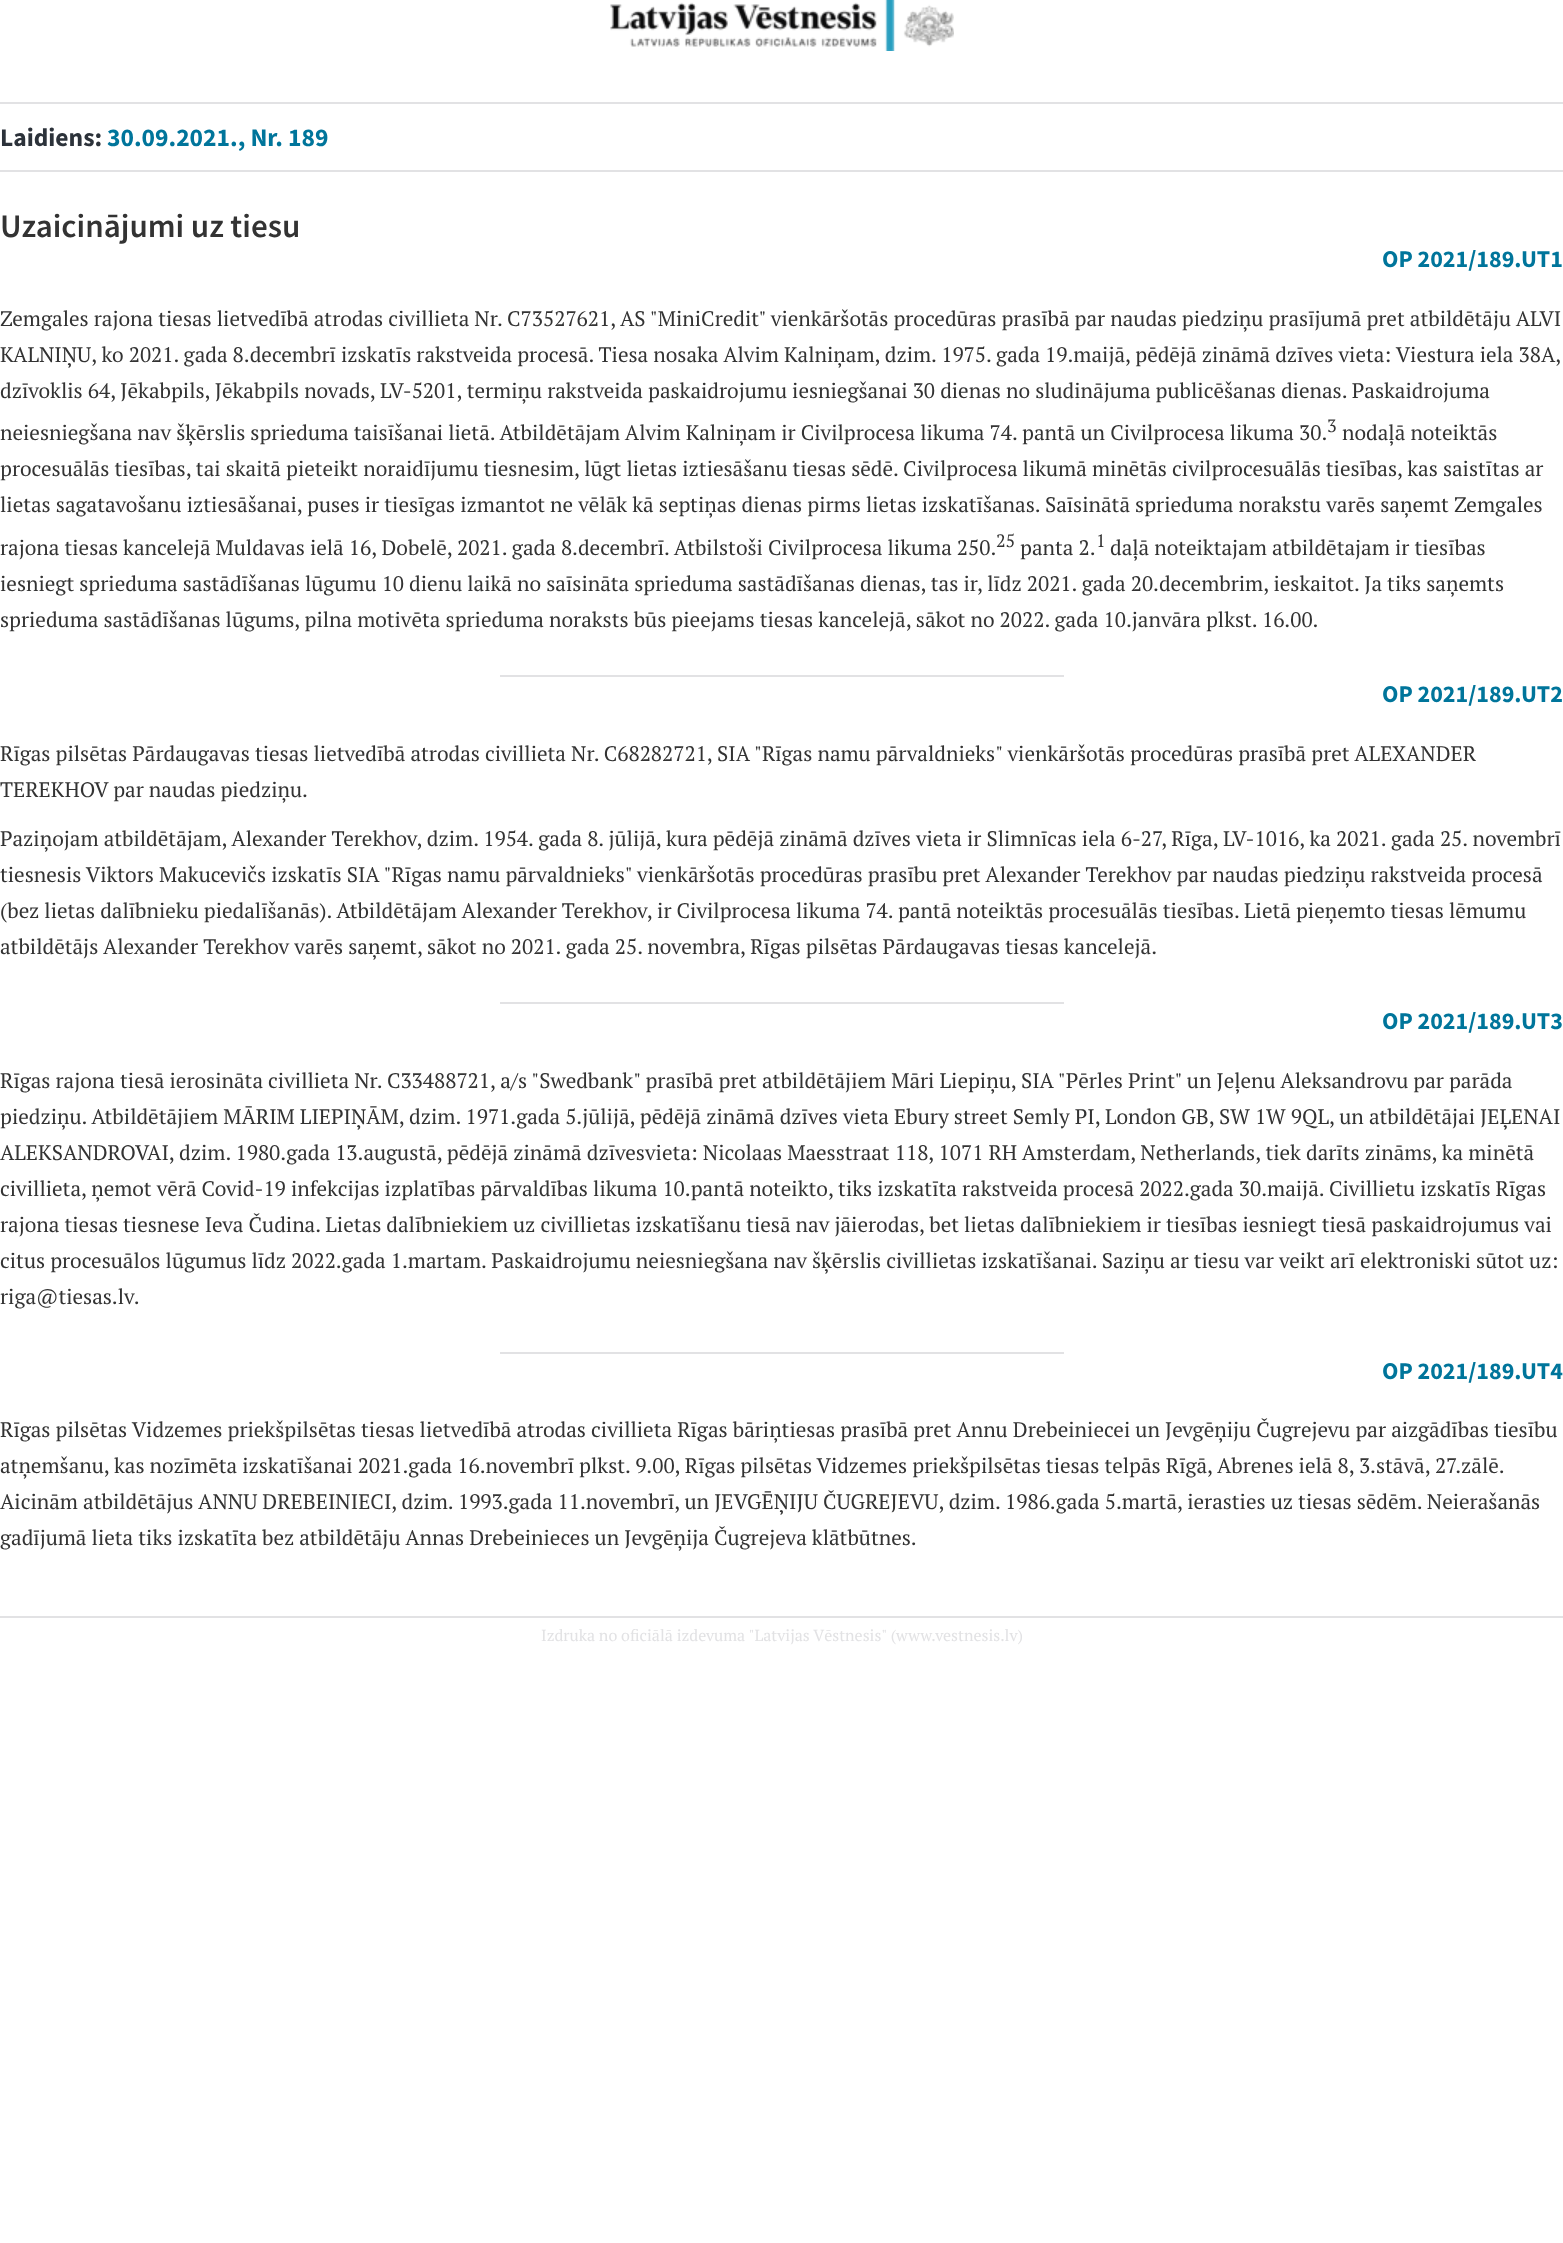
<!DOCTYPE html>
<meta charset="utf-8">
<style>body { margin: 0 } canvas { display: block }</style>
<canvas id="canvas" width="1563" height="2243"></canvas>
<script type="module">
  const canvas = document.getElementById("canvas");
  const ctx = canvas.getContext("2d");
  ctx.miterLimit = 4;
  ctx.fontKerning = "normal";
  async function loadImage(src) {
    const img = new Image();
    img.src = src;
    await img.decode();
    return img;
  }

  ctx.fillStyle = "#ffffff";
  ctx.fillRect(0, 0, 1563, 2243);
  ctx.drawImage(await loadImage("img1.png"), 610, 0, 344, 51);
  ctx.fillStyle = "#e2e2e4";
  ctx.fillRect(0, 102, 1563, 2);
  ctx.fillRect(0, 170, 1563, 2);
  ctx.font = "bold 25.5px Source Sans Pro";
  ctx.fillStyle = "#2c323a";
  ctx.fillText("Laidiens:", 0, 146);
  ctx.fillStyle = "#00759b";
  ctx.fillText("30.09.2021., Nr. 189", 107, 146);
  ctx.font = "600 33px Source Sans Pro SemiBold";
  ctx.fillStyle = "#333333";
  ctx.fillText("Uzaicinājumi uz tiesu", 0, 237);
  ctx.font = "bold 24px Source Sans Pro";
  ctx.fillStyle = "#00759b";
  ctx.fillText("OP 2021/189.UT1", 1382, 267);
  ctx.font = "21px PT Serif";
  ctx.fillStyle = "#333333";
  ctx.fillText("Zemgales rajona tiesas lietvedībā atrodas civillieta Nr. C73527621, AS \"MiniCredit\" vienkāršotās procedūras prasībā par naudas piedziņu prasījumā pret atbildētāju ALVI", 0, 326);
  ctx.fillText("KALNIŅU, ko 2021. gada 8.decembrī izskatīs rakstveida procesā. Tiesa nosaka Alvim Kalniņam, dzim. 1975. gada 19.maijā, pēdējā zināmā dzīves vieta: Viestura iela 38A,", 0, 362);
  ctx.fillText("dzīvoklis 64, Jēkabpils, Jēkabpils novads, LV-5201, termiņu rakstveida paskaidrojumu iesniegšanai 30 dienas no sludinājuma publicēšanas dienas. Paskaidrojuma", 0, 398);
  ctx.fillText("neiesniegšana nav šķērslis sprieduma taisīšanai lietā. Atbildētājam Alvim Kalniņam ir Civilprocesa likuma 74. pantā un Civilprocesa likuma 30.", 0, 440);
  ctx.font = "18px PT Serif";
  ctx.fillText("3", 1327, 432);
  ctx.font = "21px PT Serif";
  ctx.fillText("nodaļā noteiktās", 1342, 440);
  ctx.fillText("procesuālās tiesības, tai skaitā pieteikt noraidījumu tiesnesim, lūgt lietas iztiesāšanu tiesas sēdē. Civilprocesa likumā minētās civilprocesuālās tiesības, kas saistītas ar", 0, 476);
  ctx.fillText("lietas sagatavošanu iztiesāšanai, puses ir tiesīgas izmantot ne vēlāk kā septiņas dienas pirms lietas izskatīšanas. Saīsinātā sprieduma norakstu varēs saņemt Zemgales", 0, 512);
  ctx.fillText("rajona tiesas kancelejā Muldavas ielā 16, Dobelē, 2021. gada 8.decembrī. Atbilstoši Civilprocesa likuma 250.", 0, 555);
  ctx.font = "18px PT Serif";
  ctx.fillText("25", 996, 547);
  ctx.font = "21px PT Serif";
  ctx.fillText("panta 2.", 1020, 555);
  ctx.font = "18px PT Serif";
  ctx.fillText("1", 1096, 547);
  ctx.font = "21px PT Serif";
  ctx.fillText("daļā noteiktajam atbildētajam ir tiesības", 1110, 555);
  ctx.fillText("iesniegt sprieduma sastādīšanas lūgumu 10 dienu laikā no saīsināta sprieduma sastādīšanas dienas, tas ir, līdz 2021. gada 20.decembrim, ieskaitot. Ja tiks saņemts", 0, 591);
  ctx.fillText("sprieduma sastādīšanas lūgums, pilna motivēta sprieduma noraksts būs pieejams tiesas kancelejā, sākot no 2022. gada 10.janvāra plkst. 16.00.", 0, 627);
  ctx.fillStyle = "#e2e2e4";
  ctx.fillRect(500, 675, 564, 2);
  ctx.font = "bold 24px Source Sans Pro";
  ctx.fillStyle = "#00759b";
  ctx.fillText("OP 2021/189.UT2", 1382, 702);
  ctx.font = "21px PT Serif";
  ctx.fillStyle = "#333333";
  ctx.fillText("Rīgas pilsētas Pārdaugavas tiesas lietvedībā atrodas civillieta Nr. C68282721, SIA \"Rīgas namu pārvaldnieks\" vienkāršotās procedūras prasībā pret ALEXANDER", 0, 761);
  ctx.fillText("TEREKHOV par naudas piedziņu.", 0, 797);
  ctx.fillText("Paziņojam atbildētājam, Alexander Terekhov, dzim. 1954. gada 8. jūlijā, kura pēdējā zināmā dzīves vieta ir Slimnīcas iela 6-27, Rīga, LV-1016, ka 2021. gada 25. novembrī", 0, 846);
  ctx.fillText("tiesnesis Viktors Makucevičs izskatīs SIA \"Rīgas namu pārvaldnieks\" vienkāršotās procedūras prasību pret Alexander Terekhov par naudas piedziņu rakstveida procesā", 0, 882);
  ctx.fillText("(bez lietas dalībnieku piedalīšanās). Atbildētājam Alexander Terekhov, ir Civilprocesa likuma 74. pantā noteiktās procesuālās tiesības. Lietā pieņemto tiesas lēmumu", 0, 918);
  ctx.fillText("atbildētājs Alexander Terekhov varēs saņemt, sākot no 2021. gada 25. novembra, Rīgas pilsētas Pārdaugavas tiesas kancelejā.", 0, 954);
  ctx.fillStyle = "#e2e2e4";
  ctx.fillRect(500, 1002, 564, 2);
  ctx.font = "bold 24px Source Sans Pro";
  ctx.fillStyle = "#00759b";
  ctx.fillText("OP 2021/189.UT3", 1382, 1029);
  ctx.font = "21px PT Serif";
  ctx.fillStyle = "#333333";
  ctx.fillText("Rīgas rajona tiesā ierosināta civillieta Nr. C33488721, a/s \"Swedbank\" prasībā pret atbildētājiem Māri Liepiņu, SIA \"Pērles Print\" un Jeļenu Aleksandrovu par parāda", 0, 1088);
  ctx.fillText("piedziņu. Atbildētājiem MĀRIM LIEPIŅĀM, dzim. 1971.gada 5.jūlijā, pēdējā zināmā dzīves vieta Ebury street Semly PI, London GB, SW 1W 9QL, un atbildētājai JEĻENAI", 0, 1124);
  ctx.fillText("ALEKSANDROVAI, dzim. 1980.gada 13.augustā, pēdējā zināmā dzīvesvieta: Nicolaas Maesstraat 118, 1071 RH Amsterdam, Netherlands, tiek darīts zināms, ka minētā", 0, 1160);
  ctx.fillText("civillieta, ņemot vērā Covid-19 infekcijas izplatības pārvaldības likuma 10.pantā noteikto, tiks izskatīta rakstveida procesā 2022.gada 30.maijā. Civillietu izskatīs Rīgas", 0, 1196);
  ctx.fillText("rajona tiesas tiesnese Ieva Čudina. Lietas dalībniekiem uz civillietas izskatīšanu tiesā nav jāierodas, bet lietas dalībniekiem ir tiesības iesniegt tiesā paskaidrojumus vai", 0, 1232);
  ctx.fillText("citus procesuālos lūgumus līdz 2022.gada 1.martam. Paskaidrojumu neiesniegšana nav šķērslis civillietas izskatīšanai. Saziņu ar tiesu var veikt arī elektroniski sūtot uz:", 0, 1268);
  ctx.fillText("riga@tiesas.lv.", 0, 1304);
  ctx.fillStyle = "#e2e2e4";
  ctx.fillRect(500, 1352, 564, 2);
  ctx.font = "bold 24px Source Sans Pro";
  ctx.fillStyle = "#00759b";
  ctx.fillText("OP 2021/189.UT4", 1382, 1379);
  ctx.font = "21px PT Serif";
  ctx.fillStyle = "#333333";
  ctx.fillText("Rīgas pilsētas Vidzemes priekšpilsētas tiesas lietvedībā atrodas civillieta Rīgas bāriņtiesas prasībā pret Annu Drebeiniecei un Jevgēņiju Čugrejevu par aizgādības tiesību", 0, 1437);
  ctx.fillText("atņemšanu, kas nozīmēta izskatīšanai 2021.gada 16.novembrī plkst. 9.00, Rīgas pilsētas Vidzemes priekšpilsētas tiesas telpās Rīgā, Abrenes ielā 8, 3.stāvā, 27.zālē.", 0, 1473);
  ctx.fillText("Aicinām atbildētājus ANNU DREBEINIECI, dzim. 1993.gada 11.novembrī, un JEVGĒŅIJU ČUGREJEVU, dzim. 1986.gada 5.martā, ierasties uz tiesas sēdēm. Neierašanās", 0, 1509);
  ctx.fillText("gadījumā lieta tiks izskatīta bez atbildētāju Annas Drebeinieces un Jevgēņija Čugrejeva klātbūtnes.", 0, 1545);
  ctx.fillStyle = "#e2e2e4";
  ctx.fillRect(0, 1616, 1563, 2);
  ctx.font = "16px PT Serif";
  ctx.fillText("Izdruka no oficiālā izdevuma \"Latvijas Vēstnesis\" (www.vestnesis.lv)", 541, 1641);
</script>
